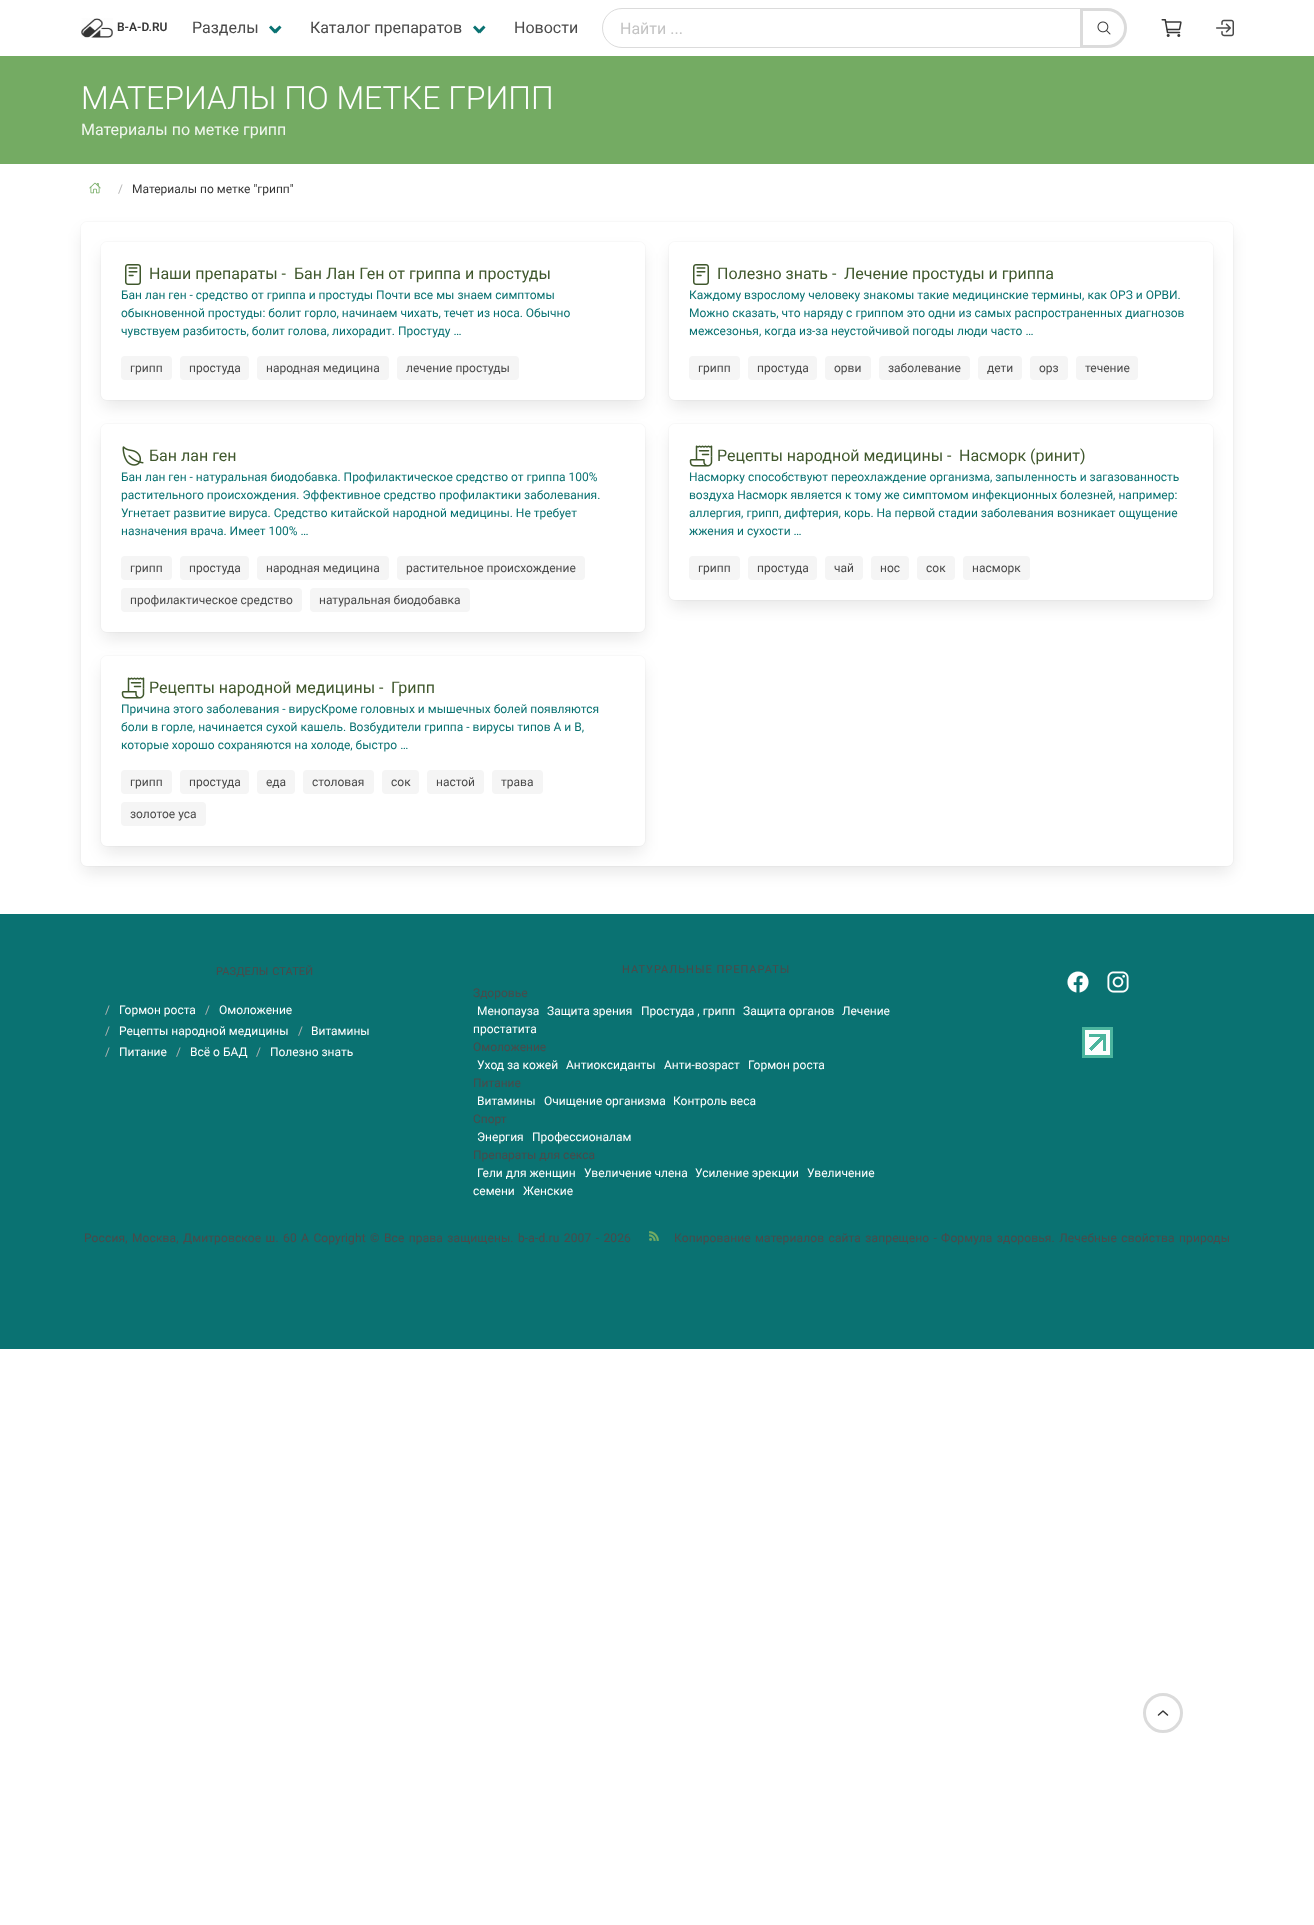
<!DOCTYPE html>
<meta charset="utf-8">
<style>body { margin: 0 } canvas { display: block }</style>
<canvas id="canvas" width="1314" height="1925"></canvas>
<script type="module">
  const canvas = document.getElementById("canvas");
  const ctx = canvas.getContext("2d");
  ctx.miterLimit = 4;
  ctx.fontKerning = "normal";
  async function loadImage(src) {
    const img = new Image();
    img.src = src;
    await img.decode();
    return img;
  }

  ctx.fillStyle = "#ffffff";
  ctx.fillRect(0, 0, 1314, 1925);
  ctx.drawImage(await loadImage("img1.png"), 81, 18, 32, 20);
  ctx.font = "600 12px Roboto";
  ctx.fillStyle = "#363636";
  ctx.fillText("B-A-D.RU", 117, 31);
  ctx.font = "16px Roboto";
  ctx.fillStyle = "#4a4a4a";
  ctx.fillText("Разделы", 192, 33);
  ctx.fillStyle = "#0a7272";
  ctx.beginPath();
  ctx.moveTo(273.5, 31);
  ctx.lineTo(279.5, 25.5);
  ctx.lineTo(281.5, 27.5);
  ctx.lineTo(276, 33.5);
  ctx.closePath();
  ctx.fill();
  ctx.beginPath();
  ctx.moveTo(269, 27.5);
  ctx.lineTo(271, 25.5);
  ctx.lineTo(276.5, 31);
  ctx.lineTo(274.5, 33.5);
  ctx.closePath();
  ctx.fill();
  ctx.fillStyle = "#4a4a4a";
  ctx.fillText("Каталог препаратов", 310, 33);
  ctx.fillStyle = "#0a7272";
  ctx.beginPath();
  ctx.moveTo(478, 31);
  ctx.lineTo(483.5, 25.5);
  ctx.lineTo(485.5, 27.5);
  ctx.lineTo(480, 33.5);
  ctx.closePath();
  ctx.fill();
  ctx.beginPath();
  ctx.moveTo(473, 27.5);
  ctx.lineTo(475, 25.5);
  ctx.lineTo(480.5, 31);
  ctx.lineTo(478.5, 33.5);
  ctx.closePath();
  ctx.fill();
  ctx.fillStyle = "#4a4a4a";
  ctx.fillText("Новости", 514, 33);
  ctx.beginPath();
  ctx.roundRect(602.5, 8.5, 478, 39, [19.5, 0, 0, 19.5]);
  ctx.strokeStyle = "#dbdbdb";
  ctx.stroke();
  ctx.fillStyle = "#c3c3c3";
  ctx.fillText("Найти ...", 620, 34);
  ctx.fillStyle = "#ffffff";
  ctx.beginPath();
  ctx.roundRect(1081.5, 9.5, 44, 37, [0, 18.5, 18.5, 0]);
  ctx.fill();
  ctx.lineWidth = 3;
  ctx.stroke();
  ctx.drawImage(await loadImage("img2.png"), 1097, 21, 14, 14);
  ctx.drawImage(await loadImage("img3.png"), 1161, 19, 21, 18);
  ctx.drawImage(await loadImage("img4.png"), 1216, 19, 18, 18);
  ctx.fillStyle = "#74ab63";
  ctx.fillRect(0, 56, 1314, 108);
  ctx.font = "300 32px Roboto";
  ctx.fillStyle = "#ffffff";
  ctx.fillText("МАТЕРИАЛЫ ПО МЕТКЕ ГРИПП", 81, 109);
  ctx.font = "16px Roboto";
  ctx.fillStyle = "#f1f7ef";
  ctx.fillText("Материалы по метке грипп", 81, 135);
  ctx.drawImage(await loadImage("img5.png"), 89, 182, 12, 12);
  ctx.font = "12px Roboto";
  ctx.fillStyle = "#b5b5b5";
  ctx.fillText("/", 118, 193);
  ctx.fillStyle = "#363636";
  ctx.fillText("Материалы по метке \"грипп\"", 132, 193);
  ctx.beginPath();
  ctx.roundRect(80.5, 221.5, 1153, 645, 6.5);
  ctx.strokeStyle = "#fafafa";
  ctx.lineWidth = 1;
  ctx.stroke();
  ctx.fillStyle = "rgba(10, 10, 10, 0.1)";
  ctx.filter = "blur(8px)";
  ctx.beginPath();
  ctx.roundRect(83, 232, 1148, 640, 4);
  ctx.fill();
  ctx.filter = "none";
  ctx.fillStyle = "#ffffff";
  ctx.beginPath();
  ctx.roundRect(81, 222, 1152, 644, 6);
  ctx.fill();
  ctx.beginPath();
  ctx.roundRect(100.5, 241.5, 545, 159, 6.5);
  ctx.stroke();
  ctx.fillStyle = "rgba(10, 10, 10, 0.1)";
  ctx.filter = "blur(8px)";
  ctx.beginPath();
  ctx.roundRect(103, 252, 540, 154, 4);
  ctx.fill();
  ctx.filter = "none";
  ctx.fillStyle = "#ffffff";
  ctx.beginPath();
  ctx.roundRect(101, 242, 544, 158, 6);
  ctx.fill();
  ctx.drawImage(await loadImage("img6.png"), 125, 264, 16, 21);
  ctx.font = "16px Roboto";
  ctx.fillStyle = "#3f572c";
  ctx.fillText("Наши препараты -", 149, 279);
  ctx.fillText("Бан Лан Ген от гриппа и простуды", 294, 279);
  ctx.font = "12px Roboto";
  ctx.fillStyle = "#0a7272";
  ctx.fillText("Бан лан ген - средство от гриппа и простуды Почти все мы знаем симптомы", 121, 299);
  ctx.fillText("обыкновенной простуды: болит горло, начинаем чихать, течет из носа. Обычно", 121, 317);
  ctx.fillText("чувствуем разбитость, болит голова, лихорадит. Простуду …", 121, 335);
  ctx.fillStyle = "#f5f5f5";
  ctx.beginPath();
  ctx.roundRect(121, 356, 51, 24, 4);
  ctx.fill();
  ctx.fillStyle = "#4a4a4a";
  ctx.fillText("грипп", 130, 372);
  ctx.fillStyle = "#f5f5f5";
  ctx.beginPath();
  ctx.roundRect(180, 356, 69, 24, 4);
  ctx.fill();
  ctx.fillStyle = "#4a4a4a";
  ctx.fillText("простуда", 189, 372);
  ctx.fillStyle = "#f5f5f5";
  ctx.beginPath();
  ctx.roundRect(257, 356, 132, 24, 4);
  ctx.fill();
  ctx.fillStyle = "#4a4a4a";
  ctx.fillText("народная медицина", 266, 372);
  ctx.fillStyle = "#f5f5f5";
  ctx.beginPath();
  ctx.roundRect(397, 356, 122, 24, 4);
  ctx.fill();
  ctx.fillStyle = "#4a4a4a";
  ctx.fillText("лечение простуды", 406, 372);
  ctx.beginPath();
  ctx.roundRect(668.5, 241.5, 545, 159, 6.5);
  ctx.stroke();
  ctx.fillStyle = "rgba(10, 10, 10, 0.1)";
  ctx.filter = "blur(8px)";
  ctx.beginPath();
  ctx.roundRect(671, 252, 540, 154, 4);
  ctx.fill();
  ctx.filter = "none";
  ctx.fillStyle = "#ffffff";
  ctx.beginPath();
  ctx.roundRect(669, 242, 544, 158, 6);
  ctx.fill();
  ctx.drawImage(await loadImage("img6.png"), 693, 264, 16, 21);
  ctx.font = "16px Roboto";
  ctx.fillStyle = "#3f572c";
  ctx.fillText("Полезно знать -", 717, 279);
  ctx.fillText("Лечение простуды и гриппа", 844, 279);
  ctx.font = "12px Roboto";
  ctx.fillStyle = "#0a7272";
  ctx.fillText("Каждому взрослому человеку знакомы такие медицинские термины, как ОРЗ и ОРВИ.", 689, 299);
  ctx.fillText("Можно сказать, что наряду с гриппом это одни из самых распространенных диагнозов", 689, 317);
  ctx.fillText("межсезонья, когда из-за неустойчивой погоды люди часто …", 689, 335);
  ctx.fillStyle = "#f5f5f5";
  ctx.beginPath();
  ctx.roundRect(689, 356, 51, 24, 4);
  ctx.fill();
  ctx.fillStyle = "#4a4a4a";
  ctx.fillText("грипп", 698, 372);
  ctx.fillStyle = "#f5f5f5";
  ctx.beginPath();
  ctx.roundRect(748, 356, 69, 24, 4);
  ctx.fill();
  ctx.fillStyle = "#4a4a4a";
  ctx.fillText("простуда", 757, 372);
  ctx.fillStyle = "#f5f5f5";
  ctx.beginPath();
  ctx.roundRect(825, 356, 46, 24, 4);
  ctx.fill();
  ctx.fillStyle = "#4a4a4a";
  ctx.fillText("орви", 834, 372);
  ctx.fillStyle = "#f5f5f5";
  ctx.beginPath();
  ctx.roundRect(879, 356, 91, 24, 4);
  ctx.fill();
  ctx.fillStyle = "#4a4a4a";
  ctx.fillText("заболевание", 888, 372);
  ctx.fillStyle = "#f5f5f5";
  ctx.beginPath();
  ctx.roundRect(978, 356, 44, 24, 4);
  ctx.fill();
  ctx.fillStyle = "#4a4a4a";
  ctx.fillText("дети", 987, 372);
  ctx.fillStyle = "#f5f5f5";
  ctx.beginPath();
  ctx.roundRect(1030, 356, 38, 24, 4);
  ctx.fill();
  ctx.fillStyle = "#4a4a4a";
  ctx.fillText("орз", 1039, 372);
  ctx.fillStyle = "#f5f5f5";
  ctx.beginPath();
  ctx.roundRect(1076, 356, 62, 24, 4);
  ctx.fill();
  ctx.fillStyle = "#4a4a4a";
  ctx.fillText("течение", 1085, 372);
  ctx.beginPath();
  ctx.roundRect(100.5, 423.5, 545, 209, 6.5);
  ctx.stroke();
  ctx.fillStyle = "rgba(10, 10, 10, 0.1)";
  ctx.filter = "blur(8px)";
  ctx.beginPath();
  ctx.roundRect(103, 434, 540, 204, 4);
  ctx.fill();
  ctx.filter = "none";
  ctx.fillStyle = "#ffffff";
  ctx.beginPath();
  ctx.roundRect(101, 424, 544, 208, 6);
  ctx.fill();
  ctx.drawImage(await loadImage("img7.png"), 122, 446, 22, 20);
  ctx.font = "16px Roboto";
  ctx.fillStyle = "#3f572c";
  ctx.fillText("Бан лан ген", 149, 461);
  ctx.font = "12px Roboto";
  ctx.fillStyle = "#0a7272";
  ctx.fillText("Бан лан ген - натуральная биодобавка. Профилактическое средство от гриппа 100%", 121, 481);
  ctx.fillText("растительного происхождения. Эффективное средство профилактики заболевания.", 121, 499);
  ctx.fillText("Угнетает развитие вируса. Средство китайской народной медицины. Не требует", 121, 517);
  ctx.fillText("назначения врача. Имеет 100% …", 121, 535);
  ctx.fillStyle = "#f5f5f5";
  ctx.beginPath();
  ctx.roundRect(121, 556, 51, 24, 4);
  ctx.fill();
  ctx.fillStyle = "#4a4a4a";
  ctx.fillText("грипп", 130, 572);
  ctx.fillStyle = "#f5f5f5";
  ctx.beginPath();
  ctx.roundRect(180, 556, 69, 24, 4);
  ctx.fill();
  ctx.fillStyle = "#4a4a4a";
  ctx.fillText("простуда", 189, 572);
  ctx.fillStyle = "#f5f5f5";
  ctx.beginPath();
  ctx.roundRect(257, 556, 132, 24, 4);
  ctx.fill();
  ctx.fillStyle = "#4a4a4a";
  ctx.fillText("народная медицина", 266, 572);
  ctx.fillStyle = "#f5f5f5";
  ctx.beginPath();
  ctx.roundRect(397, 556, 188, 24, 4);
  ctx.fill();
  ctx.fillStyle = "#4a4a4a";
  ctx.fillText("растительное происхождение", 406, 572);
  ctx.fillStyle = "#f5f5f5";
  ctx.beginPath();
  ctx.roundRect(121, 588, 181, 24, 4);
  ctx.fill();
  ctx.fillStyle = "#4a4a4a";
  ctx.fillText("профилактическое средство", 130, 604);
  ctx.fillStyle = "#f5f5f5";
  ctx.beginPath();
  ctx.roundRect(310, 588, 160, 24, 4);
  ctx.fill();
  ctx.fillStyle = "#4a4a4a";
  ctx.fillText("натуральная биодобавка", 319, 604);
  ctx.beginPath();
  ctx.roundRect(668.5, 423.5, 545, 177, 6.5);
  ctx.stroke();
  ctx.fillStyle = "rgba(10, 10, 10, 0.1)";
  ctx.filter = "blur(8px)";
  ctx.beginPath();
  ctx.roundRect(671, 434, 540, 172, 4);
  ctx.fill();
  ctx.filter = "none";
  ctx.fillStyle = "#ffffff";
  ctx.beginPath();
  ctx.roundRect(669, 424, 544, 176, 6);
  ctx.fill();
  ctx.drawImage(await loadImage("img8.png"), 689, 445, 24, 22);
  ctx.font = "16px Roboto";
  ctx.fillStyle = "#3f572c";
  ctx.fillText("Рецепты народной медицины -", 717, 461);
  ctx.fillText("Насморк (ринит)", 959, 461);
  ctx.font = "12px Roboto";
  ctx.fillStyle = "#0a7272";
  ctx.fillText("Насморку способствуют переохлаждение организма, запыленность и загазованность", 689, 481);
  ctx.fillText("воздуха Насморк является к тому же симптомом инфекционных болезней, например:", 689, 499);
  ctx.fillText("аллергия, грипп, дифтерия, корь. На первой стадии заболевания возникает ощущение", 689, 517);
  ctx.fillText("жжения и сухости …", 689, 535);
  ctx.fillStyle = "#f5f5f5";
  ctx.beginPath();
  ctx.roundRect(689, 556, 51, 24, 4);
  ctx.fill();
  ctx.fillStyle = "#4a4a4a";
  ctx.fillText("грипп", 698, 572);
  ctx.fillStyle = "#f5f5f5";
  ctx.beginPath();
  ctx.roundRect(748, 556, 69, 24, 4);
  ctx.fill();
  ctx.fillStyle = "#4a4a4a";
  ctx.fillText("простуда", 757, 572);
  ctx.fillStyle = "#f5f5f5";
  ctx.beginPath();
  ctx.roundRect(825, 556, 38, 24, 4);
  ctx.fill();
  ctx.fillStyle = "#4a4a4a";
  ctx.fillText("чай", 834, 572);
  ctx.fillStyle = "#f5f5f5";
  ctx.beginPath();
  ctx.roundRect(871, 556, 38, 24, 4);
  ctx.fill();
  ctx.fillStyle = "#4a4a4a";
  ctx.fillText("нос", 880, 572);
  ctx.fillStyle = "#f5f5f5";
  ctx.beginPath();
  ctx.roundRect(917, 556, 38, 24, 4);
  ctx.fill();
  ctx.fillStyle = "#4a4a4a";
  ctx.fillText("сок", 926, 572);
  ctx.fillStyle = "#f5f5f5";
  ctx.beginPath();
  ctx.roundRect(963, 556, 67, 24, 4);
  ctx.fill();
  ctx.fillStyle = "#4a4a4a";
  ctx.fillText("насморк", 972, 572);
  ctx.beginPath();
  ctx.roundRect(100.5, 655.5, 545, 191, 6.5);
  ctx.stroke();
  ctx.fillStyle = "rgba(10, 10, 10, 0.1)";
  ctx.filter = "blur(8px)";
  ctx.beginPath();
  ctx.roundRect(103, 666, 540, 186, 4);
  ctx.fill();
  ctx.filter = "none";
  ctx.fillStyle = "#ffffff";
  ctx.beginPath();
  ctx.roundRect(101, 656, 544, 190, 6);
  ctx.fill();
  ctx.drawImage(await loadImage("img8.png"), 121, 677, 24, 22);
  ctx.font = "16px Roboto";
  ctx.fillStyle = "#3f572c";
  ctx.fillText("Рецепты народной медицины -", 149, 693);
  ctx.fillText("Грипп", 391, 693);
  ctx.font = "12px Roboto";
  ctx.fillStyle = "#0a7272";
  ctx.fillText("Причина этого заболевания - вирусКроме головных и мышечных болей появляются", 121, 713);
  ctx.fillText("боли в горле, начинается сухой кашель. Возбудители гриппа - вирусы типов А и В,", 121, 731);
  ctx.fillText("которые хорошо сохраняются на холоде, быстро …", 121, 749);
  ctx.fillStyle = "#f5f5f5";
  ctx.beginPath();
  ctx.roundRect(121, 770, 51, 24, 4);
  ctx.fill();
  ctx.fillStyle = "#4a4a4a";
  ctx.fillText("грипп", 130, 786);
  ctx.fillStyle = "#f5f5f5";
  ctx.beginPath();
  ctx.roundRect(180, 770, 69, 24, 4);
  ctx.fill();
  ctx.fillStyle = "#4a4a4a";
  ctx.fillText("простуда", 189, 786);
  ctx.fillStyle = "#f5f5f5";
  ctx.beginPath();
  ctx.roundRect(257, 770, 38, 24, 4);
  ctx.fill();
  ctx.fillStyle = "#4a4a4a";
  ctx.fillText("еда", 266, 786);
  ctx.fillStyle = "#f5f5f5";
  ctx.beginPath();
  ctx.roundRect(303, 770, 71, 24, 4);
  ctx.fill();
  ctx.fillStyle = "#4a4a4a";
  ctx.fillText("столовая", 312, 786);
  ctx.fillStyle = "#f5f5f5";
  ctx.beginPath();
  ctx.roundRect(382, 770, 37, 24, 4);
  ctx.fill();
  ctx.fillStyle = "#4a4a4a";
  ctx.fillText("сок", 391, 786);
  ctx.fillStyle = "#f5f5f5";
  ctx.beginPath();
  ctx.roundRect(427, 770, 57, 24, 4);
  ctx.fill();
  ctx.fillStyle = "#4a4a4a";
  ctx.fillText("настой", 436, 786);
  ctx.fillStyle = "#f5f5f5";
  ctx.beginPath();
  ctx.roundRect(492, 770, 51, 24, 4);
  ctx.fill();
  ctx.fillStyle = "#4a4a4a";
  ctx.fillText("трава", 501, 786);
  ctx.fillStyle = "#f5f5f5";
  ctx.beginPath();
  ctx.roundRect(121, 802, 85, 24, 4);
  ctx.fill();
  ctx.fillStyle = "#4a4a4a";
  ctx.fillText("золотое уса", 130, 818);
  ctx.fillStyle = "#0a7272";
  ctx.fillRect(0, 914, 1314, 435);
  ctx.letterSpacing = "0.1px";
  ctx.wordSpacing = "1px";
  ctx.font = "11px Roboto";
  ctx.fillStyle = "#4a4a4a";
  ctx.fillText("РАЗДЕЛЫ СТАТЕЙ", 216, 975);
  ctx.letterSpacing = "0px";
  ctx.wordSpacing = "0px";
  ctx.font = "12px Roboto";
  ctx.fillStyle = "#b5b5b5";
  ctx.fillText("/", 105, 1014);
  ctx.fillStyle = "#ffffff";
  ctx.fillText("Гормон роста", 119, 1014);
  ctx.fillStyle = "#b5b5b5";
  ctx.fillText("/", 205, 1014);
  ctx.fillStyle = "#ffffff";
  ctx.fillText("Омоложение", 219, 1014);
  ctx.fillStyle = "#b5b5b5";
  ctx.fillText("/", 105, 1035);
  ctx.fillStyle = "#ffffff";
  ctx.fillText("Рецепты народной медицины", 119, 1035);
  ctx.fillStyle = "#b5b5b5";
  ctx.fillText("/", 298, 1035);
  ctx.fillStyle = "#ffffff";
  ctx.fillText("Витамины", 311, 1035);
  ctx.fillStyle = "#b5b5b5";
  ctx.fillText("/", 105, 1056);
  ctx.fillStyle = "#ffffff";
  ctx.fillText("Питание", 119, 1056);
  ctx.fillStyle = "#b5b5b5";
  ctx.fillText("/", 176, 1056);
  ctx.fillStyle = "#ffffff";
  ctx.fillText("Всё о БАД", 190, 1056);
  ctx.fillStyle = "#b5b5b5";
  ctx.fillText("/", 256, 1056);
  ctx.fillStyle = "#ffffff";
  ctx.fillText("Полезно знать", 270, 1056);
  ctx.letterSpacing = "1px";
  ctx.font = "11px Roboto";
  ctx.fillStyle = "#4a4a4a";
  ctx.fillText("НАТУРАЛЬНЫЕ ПРЕПАРАТЫ", 622, 973);
  ctx.letterSpacing = "0px";
  ctx.font = "12px Roboto";
  ctx.fillText("Здоровье", 473, 997);
  ctx.fillStyle = "#ffffff";
  ctx.fillText("Менопауза", 477, 1015);
  ctx.fillText("Защита зрения", 547, 1015);
  ctx.fillText("Простуда , грипп", 641, 1015);
  ctx.fillText("Защита органов", 743, 1015);
  ctx.fillText("Лечение", 842, 1015);
  ctx.fillText("простатита", 473, 1033);
  ctx.fillStyle = "#4a4a4a";
  ctx.fillText("Омоложение", 473, 1051);
  ctx.fillStyle = "#ffffff";
  ctx.fillText("Уход за кожей", 477, 1069);
  ctx.fillText("Антиоксиданты", 566, 1069);
  ctx.fillText("Анти-возраст", 664, 1069);
  ctx.fillText("Гормон роста", 748, 1069);
  ctx.fillStyle = "#4a4a4a";
  ctx.fillText("Питание", 473, 1087);
  ctx.fillStyle = "#ffffff";
  ctx.fillText("Витамины", 477, 1105);
  ctx.fillText("Очищение организма", 544, 1105);
  ctx.fillText("Контроль веса", 673, 1105);
  ctx.fillStyle = "#4a4a4a";
  ctx.fillText("Спорт", 473, 1123);
  ctx.fillStyle = "#ffffff";
  ctx.fillText("Энергия", 477, 1141);
  ctx.fillText("Профессионалам", 532, 1141);
  ctx.fillStyle = "#4a4a4a";
  ctx.fillText("Препараты для секса", 473, 1159);
  ctx.fillStyle = "#ffffff";
  ctx.fillText("Гели для женщин", 477, 1177);
  ctx.fillText("Увеличение члена", 584, 1177);
  ctx.fillText("Усиление эрекции", 695, 1177);
  ctx.fillText("Увеличение", 807, 1177);
  ctx.fillText("семени", 473, 1195);
  ctx.fillText("Женские", 523, 1195);
  ctx.drawImage(await loadImage("img9.png"), 1067, 971, 22, 22);
  ctx.drawImage(await loadImage("img10.png"), 1107, 971, 22, 22);
  ctx.drawImage(await loadImage("img11.png"), 1082, 1027, 31, 31);
  ctx.letterSpacing = "0.12px";
  ctx.wordSpacing = "1.25px";
  ctx.fillStyle = "#4a4a4a";
  ctx.fillText("Россия, Москва, Дмитровское ш. 60 А Copyright © Все права защищены. b-a-d.ru 2007 - 2026", 84, 1242);
  ctx.drawImage(await loadImage("img12.png"), 649, 1231, 10, 10);
  ctx.fillText("Копирование материалов сайта запрещено -", 674, 1242);
  ctx.fillText("Формула здоровья. Лечебные свойства природы", 941, 1242);
  ctx.beginPath();
  ctx.arc(1163, 1713, 18.5, 0, Math.PI * 2);
  ctx.strokeStyle = "#dbdbdb";
  ctx.lineWidth = 3;
  ctx.stroke();
  ctx.beginPath();
  ctx.moveTo(1158.5, 1715);
  ctx.lineTo(1163, 1711);
  ctx.lineTo(1167.5, 1715);
  ctx.strokeStyle = "#363636";
  ctx.lineWidth = 1.5;
  ctx.lineCap = "round";
  ctx.lineJoin = "round";
  ctx.stroke();
</script>
